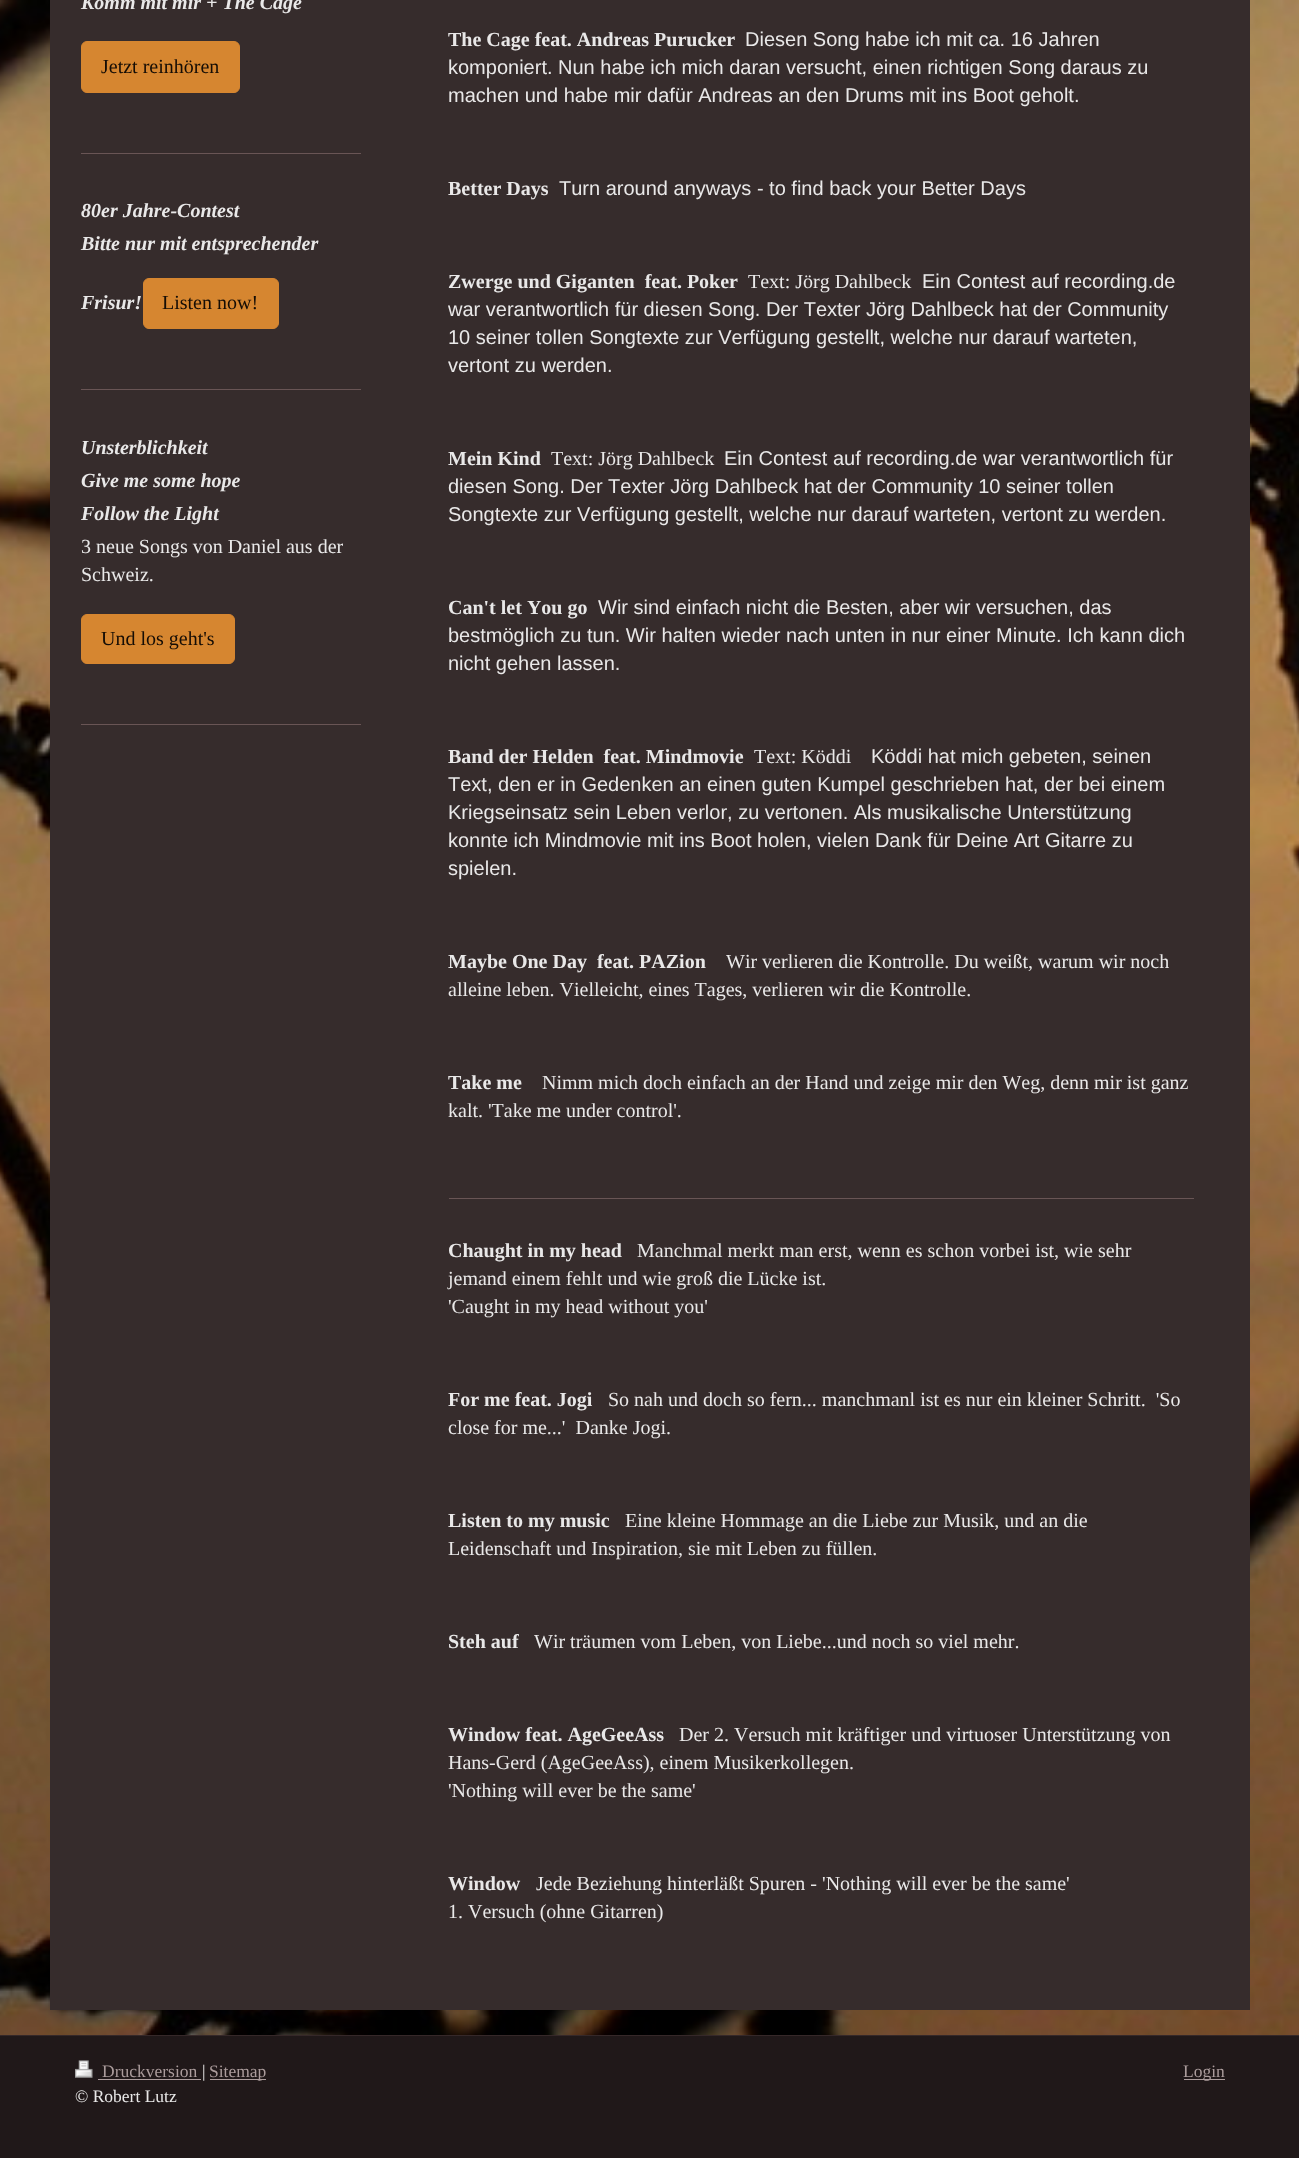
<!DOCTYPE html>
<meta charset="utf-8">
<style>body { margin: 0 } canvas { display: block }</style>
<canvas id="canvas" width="1299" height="2158"></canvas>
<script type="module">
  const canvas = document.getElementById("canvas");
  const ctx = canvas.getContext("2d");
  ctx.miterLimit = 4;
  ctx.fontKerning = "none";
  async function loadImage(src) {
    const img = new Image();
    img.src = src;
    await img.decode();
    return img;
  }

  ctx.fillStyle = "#ffffff";
  ctx.fillRect(0, 0, 1299, 2158);
  ctx.drawImage(await loadImage("img1.png"), 0, 0, 1299, 2035);
  ctx.fillStyle = "#362c2c";
  ctx.fillRect(50, 0, 1200, 2010);
  ctx.font = "italic bold 20px Liberation Serif";
  ctx.fillStyle = "#e9e8e8";
  ctx.fillText("Komm mit mir + The Cage", 81, 9);
  ctx.fillStyle = "#d68630";
  ctx.beginPath();
  ctx.roundRect(81.5, 41.5, 158, 51, 5.5);
  ctx.fill();
  ctx.strokeStyle = "#d68630";
  ctx.stroke();
  ctx.font = "20px Liberation Serif";
  ctx.fillStyle = "#150d05";
  ctx.fillText("Jetzt reinhören", 101, 73);
  ctx.fillStyle = "#695555";
  ctx.fillRect(81, 153, 280, 1);
  ctx.font = "italic bold 20px Liberation Serif";
  ctx.fillStyle = "#e9e8e8";
  ctx.fillText("80er Jahre-Contest", 81, 217);
  ctx.fillText("Bitte nur mit entsprechender", 81, 250);
  ctx.fillText("Frisur!", 81, 309);
  ctx.fillStyle = "#d68630";
  ctx.beginPath();
  ctx.roundRect(143.5, 278.5, 135, 50, 5.5);
  ctx.fill();
  ctx.stroke();
  ctx.font = "20px Liberation Serif";
  ctx.fillStyle = "#150d05";
  ctx.fillText("Listen now!", 162, 309);
  ctx.fillStyle = "#695555";
  ctx.fillRect(81, 389, 280, 1);
  ctx.font = "italic bold 20px Liberation Serif";
  ctx.fillStyle = "#e9e8e8";
  ctx.fillText("Unsterblichkeit", 81, 454);
  ctx.fillText("Give me some hope", 81, 487);
  ctx.fillText("Follow the Light", 81, 520);
  ctx.font = "20px Liberation Serif";
  ctx.fillText("3 neue Songs von Daniel aus der", 81, 553);
  ctx.fillText("Schweiz.", 81, 581);
  ctx.fillStyle = "#d68630";
  ctx.beginPath();
  ctx.roundRect(81.5, 614.5, 153, 49, 5.5);
  ctx.fill();
  ctx.stroke();
  ctx.fillStyle = "#150d05";
  ctx.fillText("Und los geht's", 101, 645);
  ctx.fillStyle = "#695555";
  ctx.fillRect(81, 724, 280, 1);
  ctx.font = "bold 20px Liberation Serif";
  ctx.fillStyle = "#e9e8e8";
  ctx.fillText("The Cage feat. Andreas Purucker", 448, 46);
  ctx.font = "20px Liberation Sans";
  ctx.fillText("Diesen Song habe ich mit ca. 16 Jahren", 745, 46);
  ctx.fillText("komponiert. Nun habe ich mich daran versucht, einen richtigen Song daraus zu", 448, 74);
  ctx.fillText("machen und habe mir dafür Andreas an den Drums mit ins Boot geholt.", 448, 102);
  ctx.font = "bold 20px Liberation Serif";
  ctx.fillText("Better Days", 448, 195);
  ctx.font = "20px Liberation Sans";
  ctx.fillText("Turn around anyways - to find back your Better Days", 559, 195);
  ctx.font = "bold 20px Liberation Serif";
  ctx.fillText("Zwerge und Giganten  feat. Poker", 448, 288);
  ctx.font = "20px Liberation Serif";
  ctx.fillText("Text: Jörg Dahlbeck", 748, 288);
  ctx.font = "20px Liberation Sans";
  ctx.fillText("Ein Contest auf recording.de", 922, 288);
  ctx.fillText("war verantwortlich für diesen Song. Der Texter Jörg Dahlbeck hat der Community", 448, 316);
  ctx.fillText("10 seiner tollen Songtexte zur Verfügung gestellt, welche nur darauf warteten,", 448, 344);
  ctx.fillText("vertont zu werden.", 448, 372);
  ctx.font = "bold 20px Liberation Serif";
  ctx.fillText("Mein Kind", 448, 465);
  ctx.font = "20px Liberation Serif";
  ctx.fillText("Text: Jörg Dahlbeck", 551, 465);
  ctx.font = "20px Liberation Sans";
  ctx.fillText("Ein Contest auf recording.de war verantwortlich für", 724, 465);
  ctx.fillText("diesen Song. Der Texter Jörg Dahlbeck hat der Community 10 seiner tollen", 448, 493);
  ctx.fillText("Songtexte zur Verfügung gestellt, welche nur darauf warteten, vertont zu werden.", 448, 521);
  ctx.font = "bold 20px Liberation Serif";
  ctx.fillText("Can't let You go", 448, 614);
  ctx.font = "20px Liberation Sans";
  ctx.fillText("Wir sind einfach nicht die Besten, aber wir versuchen, das", 598, 614);
  ctx.fillText("bestmöglich zu tun. Wir halten wieder nach unten in nur einer Minute. Ich kann dich", 448, 642);
  ctx.fillText("nicht gehen lassen.", 448, 670);
  ctx.font = "bold 20px Liberation Serif";
  ctx.fillText("Band der Helden  feat. Mindmovie", 448, 763);
  ctx.font = "20px Liberation Serif";
  ctx.fillText("Text: Köddi", 754, 763);
  ctx.font = "20px Liberation Sans";
  ctx.fillText("Köddi hat mich gebeten, seinen", 871, 763);
  ctx.fillText("Text, den er in Gedenken an einen guten Kumpel geschrieben hat, der bei einem", 448, 791);
  ctx.fillText("Kriegseinsatz sein Leben verlor, zu vertonen. Als musikalische Unterstützung", 448, 819);
  ctx.fillText("konnte ich Mindmovie mit ins Boot holen, vielen Dank für Deine Art Gitarre zu", 448, 847);
  ctx.fillText("spielen.", 448, 875);
  ctx.font = "bold 20px Liberation Serif";
  ctx.fillText("Maybe One Day  feat. PAZion", 448, 968);
  ctx.font = "20px Liberation Serif";
  ctx.fillText("Wir verlieren die Kontrolle. Du weißt, warum wir noch", 726, 968);
  ctx.fillText("alleine leben. Vielleicht, eines Tages, verlieren wir die Kontrolle.", 448, 996);
  ctx.font = "bold 20px Liberation Serif";
  ctx.fillText("Take me", 448, 1089);
  ctx.font = "20px Liberation Serif";
  ctx.fillText("Nimm mich doch einfach an der Hand und zeige mir den Weg, denn mir ist ganz", 542, 1089);
  ctx.fillText("kalt. 'Take me under control'.", 448, 1117);
  ctx.fillStyle = "#695555";
  ctx.fillRect(449, 1198, 745, 1);
  ctx.font = "bold 20px Liberation Serif";
  ctx.fillStyle = "#e9e8e8";
  ctx.fillText("Chaught in my head", 448, 1257);
  ctx.font = "20px Liberation Serif";
  ctx.fillText("Manchmal merkt man erst, wenn es schon vorbei ist, wie sehr", 637, 1257);
  ctx.fillText("jemand einem fehlt und wie groß die Lücke ist.", 448, 1285);
  ctx.fillText("'Caught in my head without you'", 448, 1313);
  ctx.font = "bold 20px Liberation Serif";
  ctx.fillText("For me feat. Jogi", 448, 1406);
  ctx.font = "20px Liberation Serif";
  ctx.fillText("So nah und doch so fern... manchmanl ist es nur ein kleiner Schritt.  'So", 608, 1406);
  ctx.fillText("close for me...'  Danke Jogi.", 448, 1434);
  ctx.font = "bold 20px Liberation Serif";
  ctx.fillText("Listen to my music", 448, 1527);
  ctx.font = "20px Liberation Serif";
  ctx.fillText("Eine kleine Hommage an die Liebe zur Musik, und an die", 625, 1527);
  ctx.fillText("Leidenschaft und Inspiration, sie mit Leben zu füllen.", 448, 1555);
  ctx.font = "bold 20px Liberation Serif";
  ctx.fillText("Steh auf", 448, 1648);
  ctx.font = "20px Liberation Serif";
  ctx.fillText("Wir träumen vom Leben, von Liebe...und noch so viel mehr.", 534, 1648);
  ctx.font = "bold 20px Liberation Serif";
  ctx.fillText("Window feat. AgeGeeAss", 448, 1741);
  ctx.font = "20px Liberation Serif";
  ctx.fillText("Der 2. Versuch mit kräftiger und virtuoser Unterstützung von", 679, 1741);
  ctx.fillText("Hans-Gerd (AgeGeeAss), einem Musikerkollegen.", 448, 1769);
  ctx.fillText("'Nothing will ever be the same'", 448, 1797);
  ctx.font = "bold 20px Liberation Serif";
  ctx.fillText("Window", 448, 1890);
  ctx.font = "20px Liberation Serif";
  ctx.fillText("Jede Beziehung hinterläßt Spuren - 'Nothing will ever be the same'", 536, 1890);
  ctx.fillText("1. Versuch (ohne Gitarren)", 448, 1918);
  ctx.fillStyle = "#201819";
  ctx.fillRect(0, 2036, 1299, 122);
  ctx.fillStyle = "#352829";
  ctx.fillRect(0, 2035, 1299, 1);
  ctx.drawImage(await loadImage("img2.png"), 75, 2060, 18, 18);
  ctx.font = "17.5px Liberation Serif";
  ctx.fillStyle = "#ab9c9c";
  ctx.fillText("Druckversion", 102, 2077);
  ctx.fillRect(98, 2079, 103, 1);
  ctx.fillStyle = "#e9e8e8";
  ctx.fillText("|", 202, 2077);
  ctx.fillStyle = "#ab9c9c";
  ctx.fillRect(210, 2079, 56, 1);
  ctx.fillText("Sitemap", 209, 2077);
  ctx.fillStyle = "#e9e8e8";
  ctx.fillText("© Robert Lutz", 75, 2102);
  ctx.fillStyle = "#ab9c9c";
  ctx.fillRect(1184, 2079, 41, 1);
  ctx.fillText("Login", 1183, 2077);
</script>
